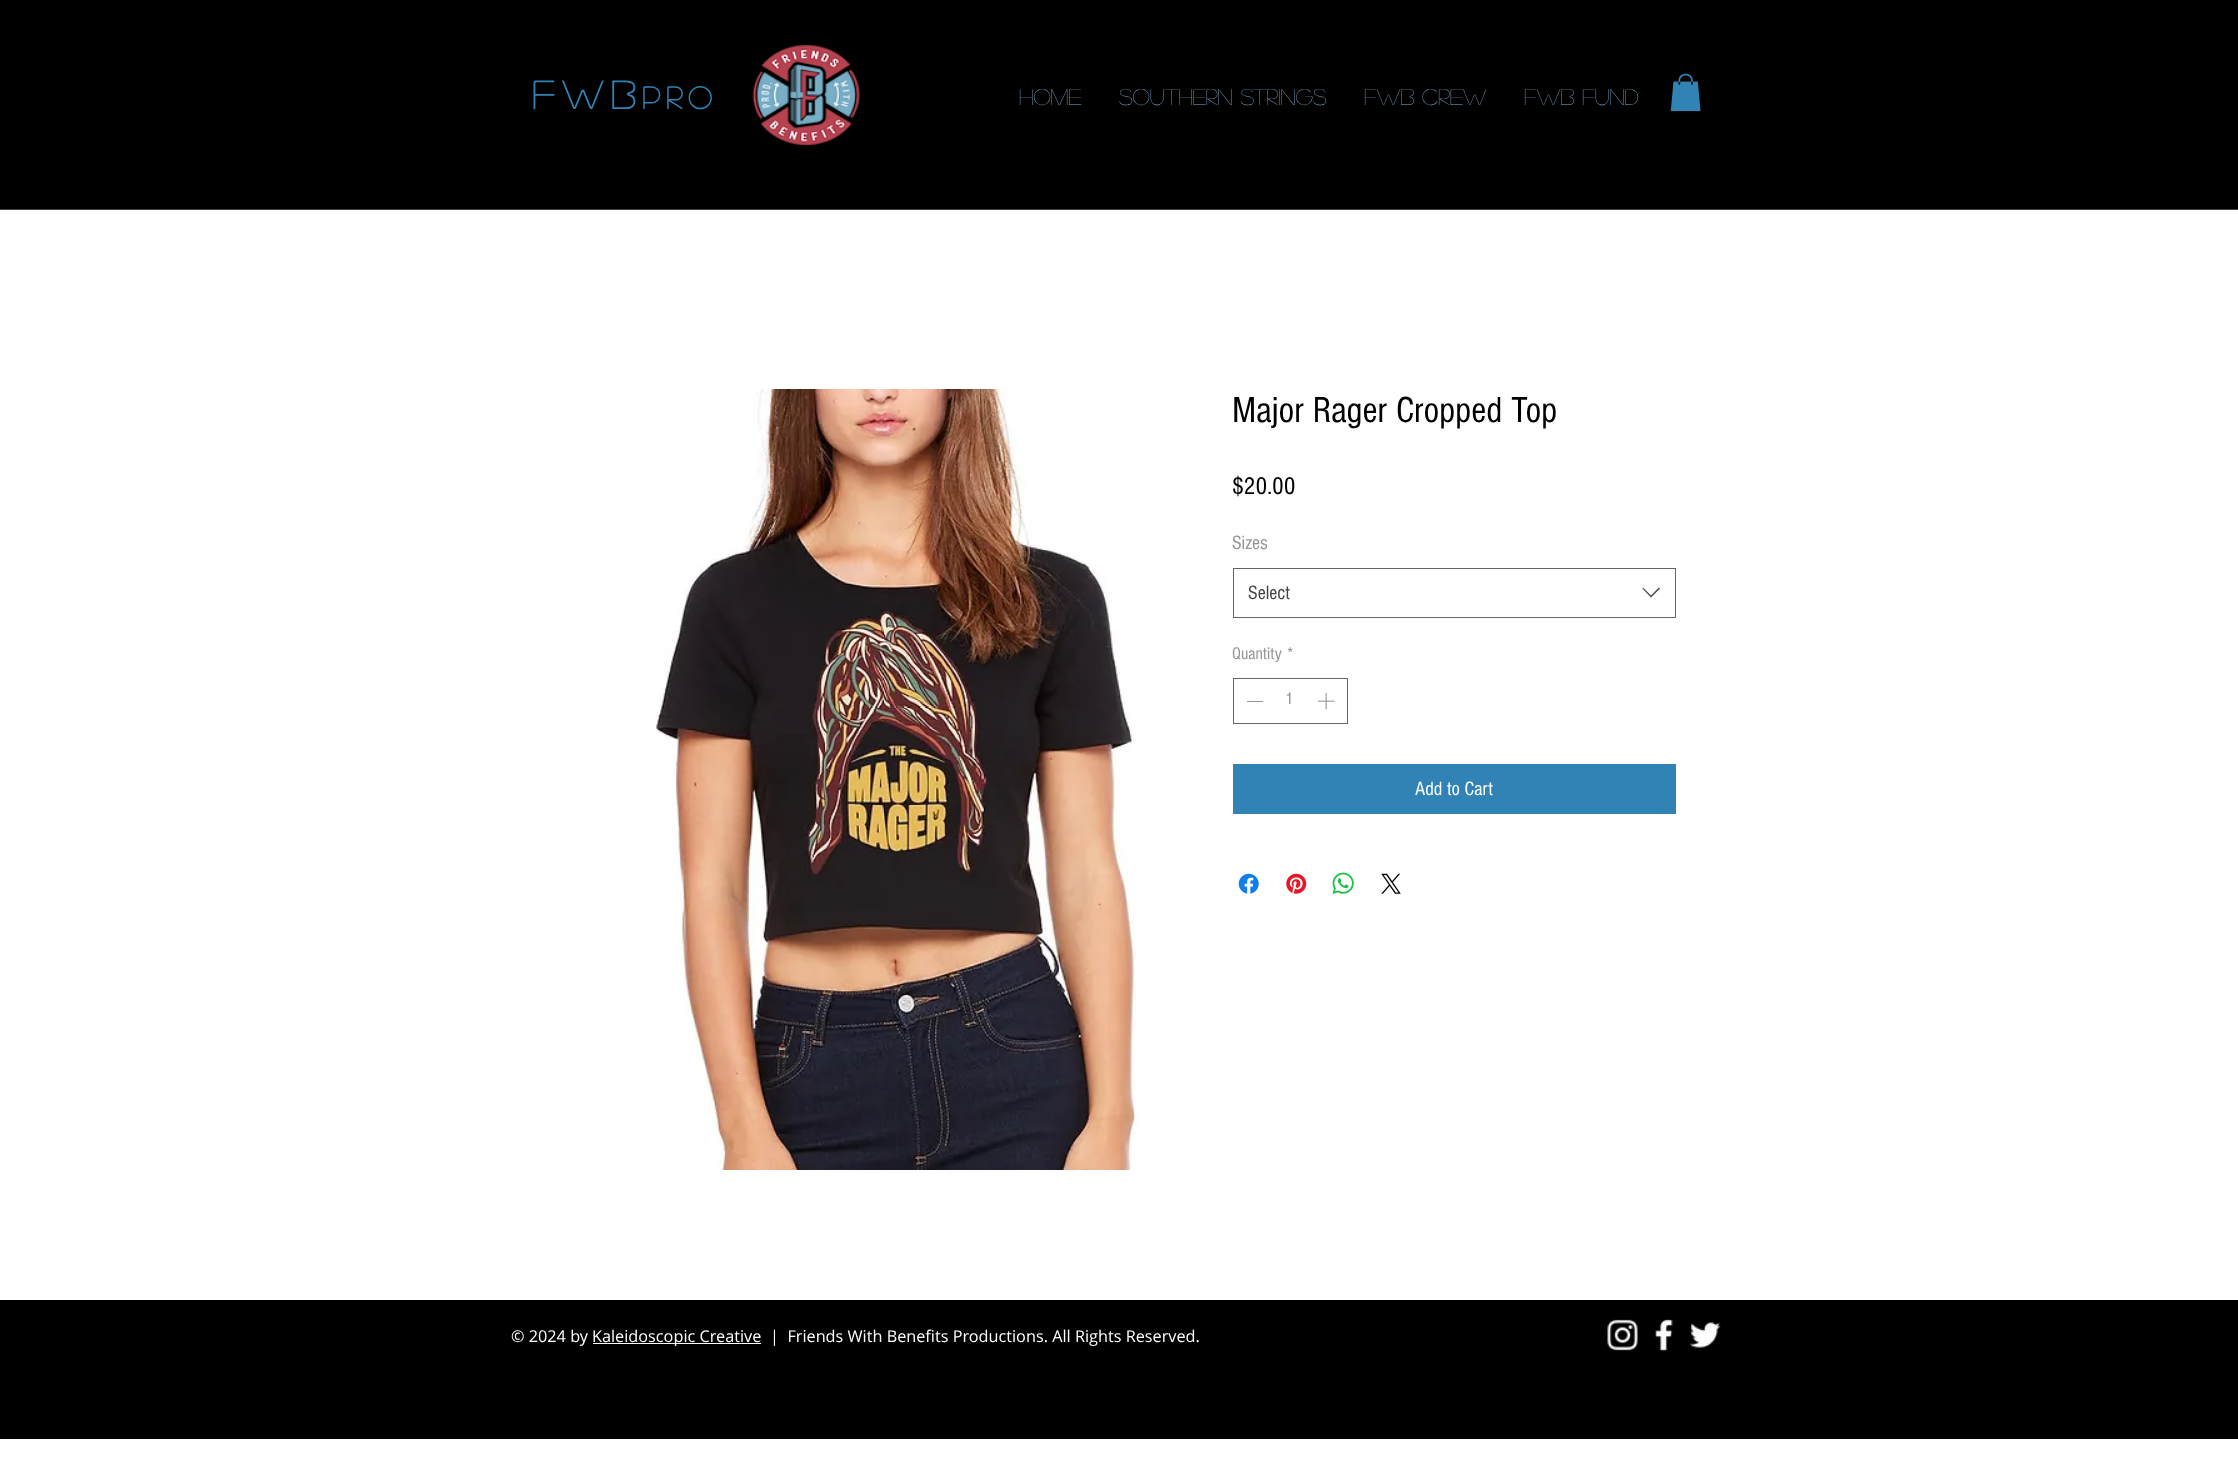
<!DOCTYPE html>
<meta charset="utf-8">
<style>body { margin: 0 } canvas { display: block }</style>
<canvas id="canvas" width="2238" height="1468"></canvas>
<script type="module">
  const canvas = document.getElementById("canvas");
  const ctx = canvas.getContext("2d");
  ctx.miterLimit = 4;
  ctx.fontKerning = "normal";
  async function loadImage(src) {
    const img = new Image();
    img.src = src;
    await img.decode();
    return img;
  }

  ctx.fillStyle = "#ffffff";
  ctx.fillRect(0, 0, 2238, 1468);
  ctx.fillStyle = "#000000";
  ctx.fillRect(0, 0, 2238, 209);
  ctx.fillStyle = "#3c4547";
  ctx.fillRect(0, 209, 2238, 1);
  ctx.letterSpacing = "8px";
  ctx.font = "bold 39px 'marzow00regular'";
  ctx.fillStyle = "#3182b5";
  ctx.fillText("FWB", 532, 109);
  ctx.letterSpacing = "6px";
  ctx.font = "bold 31px 'marzow00regular'";
  ctx.fillText("pro", 642, 109);
  ctx.drawImage(await loadImage("img1.png"), 752, 44, 109, 102);
  ctx.letterSpacing = "0px";
  ctx.font = "22.5px 'marzow00regular'";
  ctx.fillStyle = "#83b1ce";
  ctx.fillText("Home", 1019, 105);
  ctx.fillText("Southern Strings", 1119, 105);
  ctx.fillText("FWB Crew", 1364, 105);
  ctx.fillText("FWB Fund", 1524, 105);
  ctx.drawImage(await loadImage("img2.png"), 1670, 73, 31, 39);
  ctx.drawImage(await loadImage("img3.png"), 656, 389, 481, 781);
  ctx.font = "37.5px 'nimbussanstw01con'";
  ctx.fillStyle = "#000000";
  ctx.fillText("Major Rager Cropped Top", 1232, 422);
  ctx.font = "25px 'nimbussanstw01con'";
  ctx.fillText("$20.00", 1232, 494);
  ctx.font = "20px 'nimbussanstw01con'";
  ctx.fillStyle = "#959596";
  ctx.fillText("Sizes", 1232, 549);
  ctx.strokeStyle = "#666666";
  ctx.strokeRect(1233.5, 568.5, 442, 49);
  ctx.fillStyle = "#444444";
  ctx.fillText("Select", 1248, 599);
  ctx.beginPath();
  ctx.moveTo(1659, 587.5);
  ctx.lineTo(1660, 588.5);
  ctx.lineTo(1651, 597.5);
  ctx.lineTo(1642.5, 588.5);
  ctx.lineTo(1643, 587.5);
  ctx.lineTo(1651, 595.5);
  ctx.closePath();
  ctx.fill("evenodd");
  ctx.font = "17.5px 'nimbussanstw01con'";
  ctx.fillStyle = "#959596";
  ctx.fillText("Quantity", 1232, 659);
  ctx.fillText("*", 1287, 659);
  ctx.strokeRect(1233.5, 678.5, 114, 45);
  ctx.fillRect(1247, 701, 16, 1);
  ctx.fillText("1", 1285, 704);
  ctx.drawImage(await loadImage("img4.png"), 1318, 693, 17, 17);
  ctx.fillStyle = "#3182b5";
  ctx.fillRect(1233, 764, 443, 50);
  ctx.font = "20px 'nimbussanstw01con'";
  ctx.fillStyle = "#ffffff";
  ctx.fillText("Add to Cart", 1415, 795);
  ctx.drawImage(await loadImage("img5.png"), 1238, 873, 21, 21);
  ctx.drawImage(await loadImage("img6.png"), 1286, 873, 21, 21);
  ctx.drawImage(await loadImage("img7.png"), 1332, 872, 22, 22);
  ctx.drawImage(await loadImage("img8.png"), 1381, 873, 20, 21);
  ctx.fillStyle = "#000000";
  ctx.fillRect(0, 1300, 2238, 139);
  ctx.font = "16.25px Open Sans";
  ctx.fillStyle = "#ffffff";
  ctx.fillText("© 2024 by", 511, 1342);
  ctx.fillRect(593, 1343, 168, 1);
  ctx.fillText("Kaleidoscopic Creative", 592, 1342);
  ctx.fillText("|  Friends With Benefits Productions. All Rights Reserved.", 770, 1342);
  ctx.drawImage(await loadImage("img9.png"), 1607, 1319, 31, 32);
  ctx.drawImage(await loadImage("img10.png"), 1655, 1319, 18, 32);
  ctx.drawImage(await loadImage("img11.png"), 1690, 1322, 31, 26);
</script>
